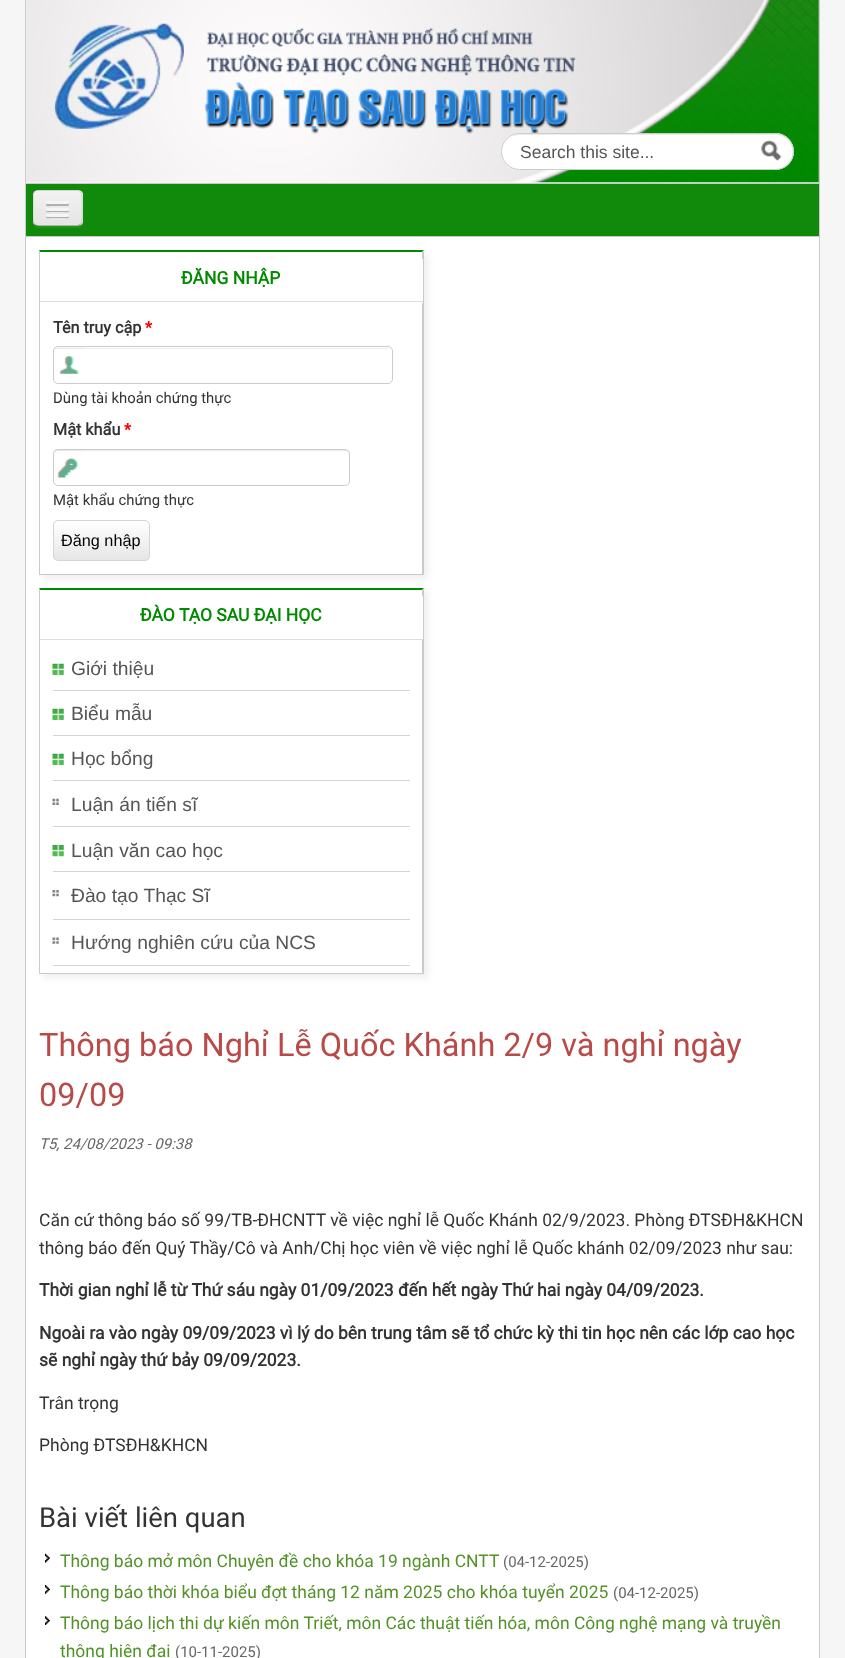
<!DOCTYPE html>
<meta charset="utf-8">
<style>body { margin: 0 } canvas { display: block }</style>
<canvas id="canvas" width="845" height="1658"></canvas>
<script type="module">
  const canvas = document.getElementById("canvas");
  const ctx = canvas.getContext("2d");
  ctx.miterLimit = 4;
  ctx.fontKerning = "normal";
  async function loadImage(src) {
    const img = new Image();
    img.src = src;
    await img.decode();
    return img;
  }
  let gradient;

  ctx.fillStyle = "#f6f6f6";
  ctx.fillRect(0, 0, 845, 1658);
  ctx.fillStyle = "#11890b";
  ctx.fillRect(26, 184, 793, 52);
  ctx.fillStyle = "#cacaca";
  ctx.fillRect(25, 183, 795, 1);
  ctx.fillRect(819, 0, 1, 236);
  ctx.fillRect(25, 0, 1, 236);
  ctx.fillStyle = "#23921d";
  ctx.beginPath();
  ctx.moveTo(33, 223);
  ctx.bezierCurveTo(33, 226, 35, 228, 38, 228);
  ctx.lineTo(78, 228);
  ctx.bezierCurveTo(81, 228, 83, 226, 83, 223);
  ctx.lineTo(83, 196);
  ctx.lineTo(82, 193);
  ctx.lineTo(82, 217);
  ctx.bezierCurveTo(82, 220, 83, 225, 79, 226);
  ctx.lineTo(44, 226);
  ctx.bezierCurveTo(41, 226, 35, 228, 33, 223);
  ctx.closePath();
  ctx.fill();
  ctx.fillStyle = "#ededed";
  ctx.beginPath();
  ctx.roundRect(33, 190, 50, 36, 5);
  ctx.fill();
  ctx.save();
  ctx.beginPath();
  ctx.roundRect(33, 190, 50, 36, 5);
  ctx.clip();
  gradient = ctx.createLinearGradient(58, 191, 58, 225);
  gradient.addColorStop(0, "#f2f2f2");
  gradient.addColorStop(1, "#e5e5e5");
  ctx.fillStyle = gradient;
  ctx.fillRect(33, 191, 50, 34);
  ctx.restore();
  ctx.beginPath();
  ctx.moveTo(80.5, 224.5);
  ctx.bezierCurveTo(80, 225, 78.5, 225.5, 77.5, 225.5);
  ctx.lineTo(37.5, 225.5);
  ctx.bezierCurveTo(36.5, 225.5, 35, 225, 34.5, 224.5);
  ctx.strokeStyle = "rgba(0, 0, 0, 0.25)";
  ctx.lineWidth = 1.2;
  ctx.stroke();
  ctx.beginPath();
  ctx.moveTo(34.5, 224.5);
  ctx.bezierCurveTo(32, 221.5, 33, 211.5, 33, 208);
  ctx.lineTo(33, 199.5);
  ctx.bezierCurveTo(33, 196, 32.5, 191.5, 36.5, 190.5);
  ctx.lineTo(78.5, 190.5);
  ctx.bezierCurveTo(82.5, 191.5, 82, 196, 82, 199.5);
  ctx.lineTo(82, 208);
  ctx.bezierCurveTo(82, 211.5, 83, 221.5, 80.5, 224.5);
  ctx.strokeStyle = "rgba(0, 0, 0, 0.1)";
  ctx.stroke();
  ctx.fillStyle = "#b1b1b1";
  ctx.beginPath();
  ctx.moveTo(46.5, 203.5);
  ctx.bezierCurveTo(46, 203.5, 46, 204.5, 46, 205);
  ctx.bezierCurveTo(46.5, 207, 50, 206, 51, 206);
  ctx.lineTo(68, 206);
  ctx.bezierCurveTo(69, 205.5, 69.5, 204, 68.5, 203.5);
  ctx.bezierCurveTo(67.5, 204, 47.5, 204, 46.5, 203.5);
  ctx.closePath();
  ctx.fill();
  ctx.fillStyle = "#f5f5f5";
  ctx.beginPath();
  ctx.roundRect(46, 201, 23, 3, 1.5);
  ctx.fill();
  ctx.fillStyle = "#b0b0b0";
  ctx.beginPath();
  ctx.moveTo(46.5, 209.5);
  ctx.lineTo(46, 211);
  ctx.bezierCurveTo(46.5, 213, 50, 212, 51, 212);
  ctx.lineTo(64, 212);
  ctx.bezierCurveTo(65, 212, 68.5, 213, 69, 211);
  ctx.lineTo(68.5, 209.5);
  ctx.lineTo(67.5, 210);
  ctx.lineTo(47.5, 210);
  ctx.closePath();
  ctx.fill();
  ctx.fillStyle = "#f5f5f5";
  ctx.beginPath();
  ctx.roundRect(46, 208, 23, 3, 1.5);
  ctx.fill();
  ctx.fillStyle = "#aeaeae";
  ctx.beginPath();
  ctx.moveTo(46.5, 215.5);
  ctx.lineTo(46, 217);
  ctx.bezierCurveTo(46.5, 219, 50, 218, 51, 218);
  ctx.lineTo(64, 218);
  ctx.bezierCurveTo(65, 218, 68.5, 219, 69, 217);
  ctx.lineTo(68.5, 215.5);
  ctx.bezierCurveTo(68.5, 216, 68, 216, 67.5, 216);
  ctx.lineTo(47.5, 216);
  ctx.bezierCurveTo(47, 216, 46.5, 216, 46.5, 215.5);
  ctx.closePath();
  ctx.fill();
  ctx.fillStyle = "#f5f5f5";
  ctx.beginPath();
  ctx.roundRect(46, 214, 23, 3, 1.5);
  ctx.fill();
  ctx.drawImage(await loadImage("img1.png"), 26, 0, 793, 183);
  ctx.fillStyle = "#ffffff";
  ctx.beginPath();
  ctx.roundRect(501, 133, 293, 37, 18.5);
  ctx.fill();
  ctx.fillStyle = "#ececec";
  ctx.beginPath();
  ctx.moveTo(520, 135);
  ctx.lineTo(779, 135);
  ctx.lineTo(785, 138);
  ctx.bezierCurveTo(793, 144, 794, 154, 790, 162);
  ctx.bezierCurveTo(792, 159, 793, 155, 793, 152);
  ctx.bezierCurveTo(793, 142, 785, 134, 776, 134);
  ctx.lineTo(520, 134);
  ctx.bezierCurveTo(513, 134, 507, 138, 504, 145);
  ctx.bezierCurveTo(507, 139, 512, 135, 520, 135);
  ctx.closePath();
  ctx.fill();
  ctx.beginPath();
  ctx.roundRect(501.5, 133.5, 292, 36, 18);
  ctx.strokeStyle = "#cccccc";
  ctx.lineWidth = 1;
  ctx.stroke();
  ctx.font = "17.5px Liberation Sans";
  ctx.fillStyle = "#555555";
  ctx.fillText("Search this site...", 520, 158);
  ctx.drawImage(await loadImage("img2.png"), 761, 140, 21, 21);
  ctx.fillStyle = "#ffffff";
  ctx.fillRect(26, 237, 793, 1421);
  ctx.fillStyle = "#cacaca";
  ctx.fillRect(25, 236, 795, 1);
  ctx.fillRect(819, 236, 1, 1422);
  ctx.fillRect(25, 236, 1, 1422);
  ctx.save();
  ctx.beginPath();
  ctx.moveTo(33, 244);
  ctx.lineTo(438, 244);
  ctx.lineTo(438, 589);
  ctx.lineTo(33, 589);
  ctx.closePath();
  ctx.moveTo(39, 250);
  ctx.lineTo(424, 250);
  ctx.lineTo(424, 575);
  ctx.lineTo(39, 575);
  ctx.closePath();
  ctx.clip("evenodd");
  ctx.fillStyle = "#eeeeee";
  ctx.filter = "blur(3px)";
  ctx.beginPath();
  ctx.rect(43, 254, 385, 325);
  ctx.fill();
  ctx.filter = "none";
  ctx.restore();
  ctx.fillStyle = "#008a00";
  ctx.beginPath();
  ctx.moveTo(39, 250);
  ctx.lineTo(424, 250);
  ctx.lineTo(422, 252);
  ctx.lineTo(40, 252);
  ctx.closePath();
  ctx.fill();
  ctx.fillStyle = "#cacaca";
  ctx.beginPath();
  ctx.moveTo(424, 250);
  ctx.lineTo(424, 575);
  ctx.lineTo(422, 574);
  ctx.lineTo(422, 252);
  ctx.closePath();
  ctx.fill();
  ctx.fillRect(39, 574, 385, 1);
  ctx.beginPath();
  ctx.moveTo(39, 575);
  ctx.lineTo(39, 250);
  ctx.lineTo(40, 252);
  ctx.lineTo(40, 574);
  ctx.closePath();
  ctx.fill();
  ctx.fillStyle = "#ffffff";
  ctx.fillRect(422, 259, 1, 44);
  ctx.fillStyle = "#dddddd";
  ctx.fillRect(40, 301, 383, 1);
  ctx.font = "bold 17.5px Roboto";
  ctx.fillStyle = "#008a00";
  ctx.fillText("ĐĂNG NHẬP", 181, 284);
  ctx.font = "bold 16.25px Roboto";
  ctx.fillStyle = "#333333";
  ctx.fillText("Tên truy cập", 53, 333);
  ctx.fillStyle = "#ff0000";
  ctx.fillText("*", 145, 333);
  ctx.drawImage(await loadImage("img3.png"), 54, 346, 31, 28);
  ctx.fillStyle = "rgba(0, 0, 0, 0.07)";
  ctx.beginPath();
  ctx.moveTo(58, 349);
  ctx.lineTo(389, 349);
  ctx.lineTo(390, 350);
  ctx.lineTo(388, 348);
  ctx.lineTo(58, 348);
  ctx.bezierCurveTo(56, 348, 55, 349, 54, 350);
  ctx.bezierCurveTo(55, 349, 56, 349, 58, 349);
  ctx.closePath();
  ctx.fill();
  ctx.beginPath();
  ctx.roundRect(53.5, 346.5, 339, 37, 4.5);
  ctx.stroke();
  ctx.font = "14.9px Roboto";
  ctx.fillStyle = "#333333";
  ctx.fillText("Dùng tài khoản chứng thực", 53, 403);
  ctx.font = "bold 16.25px Roboto";
  ctx.fillText("Mật khẩu", 53, 435);
  ctx.fillStyle = "#ff0000";
  ctx.fillText("*", 124, 435);
  ctx.drawImage(await loadImage("img4.png"), 54, 449, 31, 29);
  ctx.fillStyle = "rgba(0, 0, 0, 0.07)";
  ctx.beginPath();
  ctx.moveTo(58, 451);
  ctx.lineTo(345, 451);
  ctx.bezierCurveTo(347, 451, 349, 453, 349, 455);
  ctx.bezierCurveTo(349, 452, 348, 450, 345, 450);
  ctx.lineTo(58, 450);
  ctx.bezierCurveTo(55, 450, 54, 452, 54, 455);
  ctx.bezierCurveTo(54, 453, 55, 451, 58, 451);
  ctx.closePath();
  ctx.fill();
  ctx.beginPath();
  ctx.roundRect(53.5, 449.5, 296, 36, 4.5);
  ctx.stroke();
  ctx.font = "14.9px Roboto";
  ctx.fillStyle = "#333333";
  ctx.fillText("Mật khẩu chứng thực", 53, 505);
  ctx.save();
  ctx.beginPath();
  ctx.roundRect(53, 520, 97, 41, 5);
  ctx.clip();
  gradient = ctx.createLinearGradient(101, 521, 101, 560);
  gradient.addColorStop(0, "#ffffff");
  gradient.addColorStop(1, "#e6e6e6");
  ctx.fillStyle = gradient;
  ctx.fillRect(53, 521, 97, 39);
  ctx.restore();
  ctx.beginPath();
  ctx.roundRect(53.5, 520.5, 96, 40, 4.5);
  ctx.strokeStyle = "#d5d5d5";
  ctx.stroke();
  ctx.font = "16.25px Liberation Sans";
  ctx.fillStyle = "#000000";
  ctx.fillText("Đăng nhập", 61, 546);
  ctx.save();
  ctx.beginPath();
  ctx.moveTo(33, 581);
  ctx.lineTo(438, 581);
  ctx.lineTo(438, 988);
  ctx.lineTo(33, 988);
  ctx.closePath();
  ctx.moveTo(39, 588);
  ctx.lineTo(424, 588);
  ctx.lineTo(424, 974);
  ctx.lineTo(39, 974);
  ctx.closePath();
  ctx.clip("evenodd");
  ctx.fillStyle = "#eeeeee";
  ctx.filter = "blur(3px)";
  ctx.beginPath();
  ctx.rect(43, 591, 385, 387);
  ctx.fill();
  ctx.filter = "none";
  ctx.restore();
  ctx.fillStyle = "#008a00";
  ctx.beginPath();
  ctx.moveTo(39, 588);
  ctx.lineTo(424, 588);
  ctx.lineTo(422, 590);
  ctx.lineTo(40, 590);
  ctx.closePath();
  ctx.fill();
  ctx.fillStyle = "#cacaca";
  ctx.beginPath();
  ctx.moveTo(424, 588);
  ctx.lineTo(424, 974);
  ctx.lineTo(422, 972);
  ctx.lineTo(422, 590);
  ctx.closePath();
  ctx.fill();
  ctx.fillRect(39, 973, 385, 1);
  ctx.beginPath();
  ctx.moveTo(39, 974);
  ctx.lineTo(39, 588);
  ctx.lineTo(40, 590);
  ctx.lineTo(40, 972);
  ctx.closePath();
  ctx.fill();
  ctx.fillStyle = "#ffffff";
  ctx.fillRect(422, 596, 1, 43);
  ctx.fillStyle = "#dddddd";
  ctx.fillRect(40, 639, 383, 1);
  ctx.font = "bold 17.5px Roboto";
  ctx.fillStyle = "#008a00";
  ctx.fillText("ĐÀO TẠO SAU ĐẠI HỌC", 140, 621);
  ctx.drawImage(await loadImage("img5.png"), 52, 663, 12, 12);
  ctx.fillStyle = "#d3d3d3";
  ctx.fillRect(53, 690, 357, 1);
  ctx.font = "19.25px Liberation Sans";
  ctx.fillStyle = "#555555";
  ctx.fillText("Giới thiệu", 71, 675);
  ctx.drawImage(await loadImage("img5.png"), 52, 708, 12, 12);
  ctx.fillStyle = "#d3d3d3";
  ctx.fillRect(53, 735, 357, 1);
  ctx.fillStyle = "#555555";
  ctx.fillText("Biểu mẫu", 71, 720);
  ctx.drawImage(await loadImage("img5.png"), 52, 753, 12, 12);
  ctx.fillStyle = "#d3d3d3";
  ctx.fillRect(53, 780, 357, 1);
  ctx.fillStyle = "#555555";
  ctx.fillText("Học bổng", 71, 765);
  ctx.drawImage(await loadImage("img6.png"), 52, 798, 7, 7);
  ctx.fillStyle = "#d3d3d3";
  ctx.fillRect(53, 826, 357, 1);
  ctx.fillStyle = "#555555";
  ctx.fillText("Luận án tiến sĩ", 71, 811);
  ctx.drawImage(await loadImage("img7.png"), 52, 845, 12, 12);
  ctx.fillStyle = "#d3d3d3";
  ctx.fillRect(53, 871, 357, 1);
  ctx.fillStyle = "#555555";
  ctx.fillText("Luận văn cao học", 71, 857);
  ctx.drawImage(await loadImage("img8.png"), 52, 890, 7, 7);
  ctx.fillStyle = "#d3d3d3";
  ctx.fillRect(53, 919, 357, 1);
  ctx.fillStyle = "#555555";
  ctx.fillText("Đào tạo Thạc Sĩ", 71, 902);
  ctx.drawImage(await loadImage("img9.png"), 52, 937, 7, 7);
  ctx.fillStyle = "#d3d3d3";
  ctx.fillRect(53, 965, 357, 1);
  ctx.fillStyle = "#555555";
  ctx.fillText("Hướng nghiên cứu của NCS", 71, 949);
  ctx.font = "32.5px Roboto";
  ctx.fillStyle = "#b94a48";
  ctx.fillText("Thông báo Nghỉ Lễ Quốc Khánh 2/9 và nghỉ ngày", 39, 1056);
  ctx.fillText("09/09", 39, 1106);
  ctx.font = "italic 15px Roboto";
  ctx.fillStyle = "#666666";
  ctx.fillText("T5, 24/08/2023 - 09:38", 39, 1149);
  ctx.font = "17.5px Roboto";
  ctx.fillStyle = "#333333";
  ctx.fillText("Căn cứ thông báo số 99/TB-ĐHCNTT về việc nghỉ lễ Quốc Khánh 02/9/2023. Phòng ĐTSĐH&KHCN", 39, 1226);
  ctx.fillText("thông báo đến Quý Thầy/Cô và Anh/Chị học viên về việc nghỉ lễ Quốc khánh 02/09/2023 như sau:", 39, 1254);
  ctx.font = "bold 17.5px Roboto";
  ctx.fillText("Thời gian nghỉ lễ từ Thứ sáu ngày 01/09/2023 đến hết ngày Thứ hai ngày 04/09/2023.", 39, 1296);
  ctx.fillText("Ngoài ra vào ngày 09/09/2023 vì lý do bên trung tâm sẽ tổ chức kỳ thi tin học nên các lớp cao học", 39, 1339);
  ctx.fillText("sẽ nghỉ ngày thứ bảy 09/09/2023.", 39, 1366);
  ctx.font = "17.5px Roboto";
  ctx.fillText("Trân trọng", 39, 1409);
  ctx.fillText("Phòng ĐTSĐH&KHCN", 39, 1451);
  ctx.font = "27.5px Roboto";
  ctx.fillText("Bài viết liên quan", 39, 1527);
  ctx.drawImage(await loadImage("img10.png"), 45, 1553, 5, 10);
  ctx.font = "17.5px Roboto";
  ctx.fillStyle = "#529228";
  ctx.fillText("Thông báo mở môn Chuyên đề cho khóa 19 ngành CNTT", 60, 1567);
  ctx.font = "15px Roboto";
  ctx.fillStyle = "#666666";
  ctx.fillText("(04-12-2025)", 503, 1567);
  ctx.drawImage(await loadImage("img11.png"), 45, 1585, 5, 9);
  ctx.font = "17.5px Roboto";
  ctx.fillStyle = "#529228";
  ctx.fillText("Thông báo thời khóa biểu đợt tháng 12 năm 2025 cho khóa tuyển 2025", 60, 1598);
  ctx.font = "15px Roboto";
  ctx.fillStyle = "#666666";
  ctx.fillText("(04-12-2025)", 613, 1598);
  ctx.drawImage(await loadImage("img12.png"), 45, 1616, 5, 9);
  ctx.font = "17.5px Roboto";
  ctx.fillStyle = "#529228";
  ctx.fillText("Thông báo lịch thi dự kiến môn Triết, môn Các thuật tiến hóa, môn Công nghệ mạng và truyền", 60, 1629);
  ctx.fillText("thông hiện đại", 60, 1657);
  ctx.font = "15px Roboto";
  ctx.fillStyle = "#666666";
  ctx.fillText("(10-11-2025)", 175, 1657);
</script>
